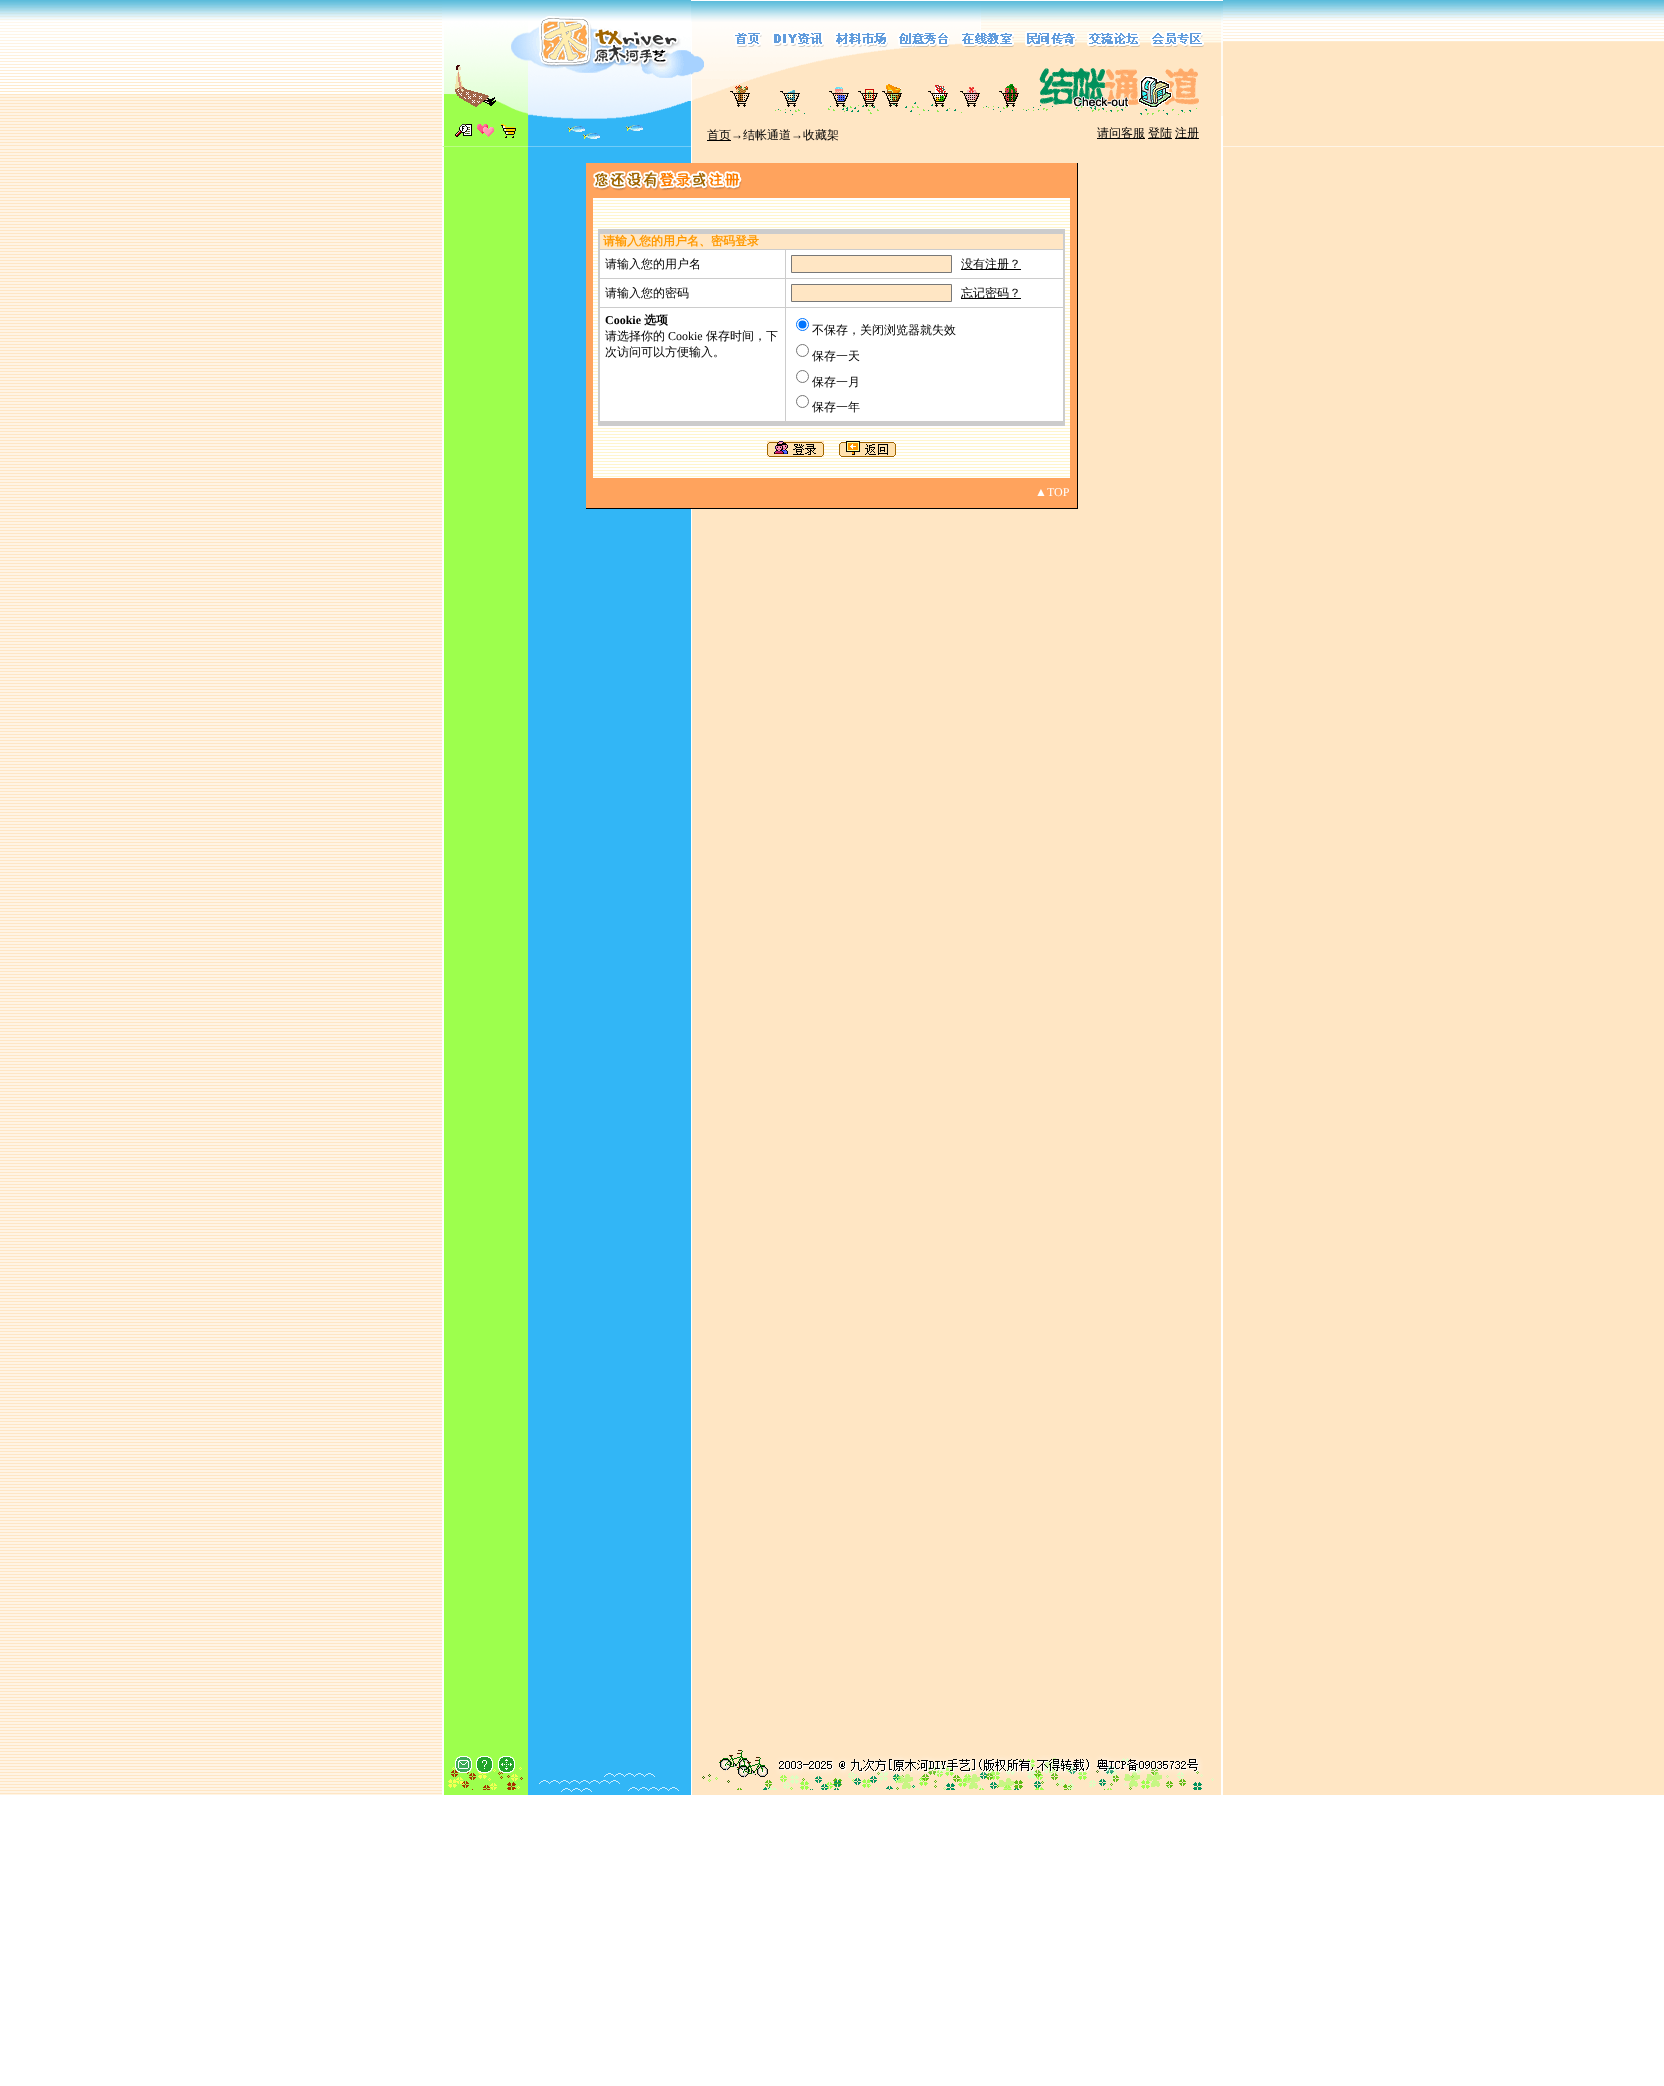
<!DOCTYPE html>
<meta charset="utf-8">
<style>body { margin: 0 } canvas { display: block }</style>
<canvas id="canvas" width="1664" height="2086"></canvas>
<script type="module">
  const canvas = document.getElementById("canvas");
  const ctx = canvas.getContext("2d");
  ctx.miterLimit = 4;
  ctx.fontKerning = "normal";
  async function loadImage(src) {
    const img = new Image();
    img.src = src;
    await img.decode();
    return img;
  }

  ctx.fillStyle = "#ffffff";
  ctx.fillRect(0, 0, 1664, 2086);
  ctx.drawImage(await loadImage("img1.png"), 0, 0, 442, 147);
  ctx.drawImage(await loadImage("img2.png"), 442, 0, 86, 115);
  ctx.fillStyle = "#9dff4d";
  ctx.fillRect(442, 115, 86, 32);
  ctx.fillStyle = "#bbff83";
  ctx.beginPath();
  ctx.moveTo(528, 147);
  ctx.lineTo(442, 147);
  ctx.lineTo(444, 146);
  ctx.lineTo(528, 146);
  ctx.closePath();
  ctx.fill();
  ctx.fillStyle = "#ffffff";
  ctx.beginPath();
  ctx.moveTo(442, 147);
  ctx.lineTo(442, 115);
  ctx.lineTo(444, 115);
  ctx.lineTo(444, 146);
  ctx.closePath();
  ctx.fill();
  ctx.drawImage(await loadImage("img3.png"), 455, 124, 17, 13);
  ctx.drawImage(await loadImage("img4.png"), 477, 124, 17, 13);
  ctx.drawImage(await loadImage("img5.png"), 501, 124, 15, 14);
  ctx.fillStyle = "#70ccf9";
  ctx.fillRect(528, 146, 163, 1);
  ctx.drawImage(await loadImage("img6.png"), 528, 0, 163, 80);
  ctx.drawImage(await loadImage("img7.png"), 528, 80, 163, 66);
  ctx.drawImage(await loadImage("img8.png"), 691, 1, 532, 28);
  ctx.drawImage(await loadImage("img9.png"), 692, 29, 74, 20);
  ctx.drawImage(await loadImage("img10.png"), 766, 29, 63, 20);
  ctx.drawImage(await loadImage("img11.png"), 829, 29, 63, 20);
  ctx.drawImage(await loadImage("img12.png"), 892, 29, 63, 20);
  ctx.drawImage(await loadImage("img13.png"), 955, 29, 64, 20);
  ctx.drawImage(await loadImage("img14.png"), 1019, 29, 61, 20);
  ctx.drawImage(await loadImage("img15.png"), 1080, 29, 65, 20);
  ctx.drawImage(await loadImage("img16.png"), 1145, 29, 78, 20);
  ctx.drawImage(await loadImage("img17.png"), 691, 49, 532, 67);
  ctx.fillStyle = "#ffe6c4";
  ctx.fillRect(692, 116, 529, 1679);
  ctx.fillStyle = "#000000";
  ctx.fillRect(707, 140, 24, 1);
  ctx.font = "500 12px WenQuanYi Zen Hei";
  ctx.fillText("首页", 707, 139);
  ctx.font = "12px Liberation Serif";
  ctx.fillText("→", 731, 139);
  ctx.font = "500 12px WenQuanYi Zen Hei";
  ctx.fillText("结帐通道", 743, 139);
  ctx.font = "12px Liberation Serif";
  ctx.fillText("→", 791, 139);
  ctx.font = "500 12px WenQuanYi Zen Hei";
  ctx.fillText("收藏架", 803, 139);
  ctx.fillRect(1097, 138, 48, 1);
  ctx.fillText("请问客服", 1097, 137);
  ctx.fillRect(1148, 138, 24, 1);
  ctx.fillText("登陆", 1148, 137);
  ctx.fillRect(1175, 138, 24, 1);
  ctx.fillText("注册", 1175, 137);
  ctx.drawImage(await loadImage("img18.png"), 1223, 0, 441, 146);
  ctx.fillStyle = "#fff5e7";
  ctx.fillRect(1223, 146, 441, 1);
  ctx.drawImage(await loadImage("img19.png"), 0, 147, 442, 1648);
  ctx.drawImage(await loadImage("img20.png"), 444, 147, 248, 1588);
  ctx.fillStyle = "#ffa35d";
  ctx.fillRect(586, 163, 491, 345);
  ctx.fillStyle = "#000000";
  ctx.fillRect(1077, 163, 1, 346);
  ctx.fillRect(586, 508, 492, 1);
  ctx.drawImage(await loadImage("img21.png"), 593, 170, 149, 21);
  ctx.drawImage(await loadImage("img22.png"), 593, 198, 477, 280);
  ctx.fillStyle = "#cccccc";
  ctx.fillRect(598, 229, 467, 197);
  ctx.fillStyle = "#ffe6c4";
  ctx.fillRect(600, 234, 463, 15);
  ctx.font = "bold 12px WenQuanYi Zen Hei";
  ctx.fillStyle = "#ff9900";
  ctx.fillText("请输入您的用户名、密码登录", 603, 245);
  ctx.fillStyle = "#ffffff";
  ctx.fillRect(600, 250, 185, 28);
  ctx.font = "500 12px WenQuanYi Zen Hei";
  ctx.fillStyle = "#000000";
  ctx.fillText("请输入您的用户名", 605, 268);
  ctx.fillStyle = "#ffffff";
  ctx.fillRect(786, 250, 277, 28);
  ctx.fillStyle = "#ffe6c4";
  ctx.beginPath();
  ctx.rect(791.5, 255.5, 160, 17);
  ctx.fill();
  ctx.strokeStyle = "#787878";
  ctx.stroke();
  ctx.fillStyle = "#000000";
  ctx.fillRect(961, 269, 60, 1);
  ctx.fillText("没有注册？", 961, 268);
  ctx.fillStyle = "#ffffff";
  ctx.fillRect(600, 279, 185, 28);
  ctx.fillStyle = "#000000";
  ctx.fillText("请输入您的密码", 605, 297);
  ctx.fillStyle = "#ffffff";
  ctx.fillRect(786, 279, 277, 28);
  ctx.fillStyle = "#ffe6c4";
  ctx.beginPath();
  ctx.rect(791.5, 284.5, 160, 17);
  ctx.fill();
  ctx.stroke();
  ctx.fillStyle = "#000000";
  ctx.fillRect(961, 298, 60, 1);
  ctx.fillText("忘记密码？", 961, 297);
  ctx.fillStyle = "#ffffff";
  ctx.fillRect(600, 308, 185, 113);
  ctx.font = "bold 12px Liberation Serif";
  ctx.fillStyle = "#000000";
  ctx.fillText("Cookie", 605, 324);
  ctx.font = "bold 12px WenQuanYi Zen Hei";
  ctx.fillText("选项", 644, 324);
  ctx.font = "500 12px WenQuanYi Zen Hei";
  ctx.fillText("请选择你的", 605, 340);
  ctx.font = "12px Liberation Serif";
  ctx.fillText("Cookie", 668, 340);
  ctx.font = "500 12px WenQuanYi Zen Hei";
  ctx.fillText("保存时间，下", 706, 340);
  ctx.fillText("次访问可以方便输入。", 605, 356);
  ctx.fillStyle = "#ffffff";
  ctx.fillRect(786, 308, 277, 113);
  ctx.beginPath();
  ctx.arc(802.5, 324.5, 6, 0, Math.PI * 2);
  ctx.strokeStyle = "#0075ff";
  ctx.stroke();
  ctx.fillStyle = "#0075ff";
  ctx.beginPath();
  ctx.arc(802.5, 324.5, 4, 0, Math.PI * 2);
  ctx.fill();
  ctx.fillStyle = "#000000";
  ctx.fillText("不保存，关闭浏览器就失效", 812, 334);
  ctx.beginPath();
  ctx.arc(802.5, 350.5, 6, 0, Math.PI * 2);
  ctx.strokeStyle = "#767676";
  ctx.stroke();
  ctx.fillText("保存一天", 812, 360);
  ctx.beginPath();
  ctx.arc(802.5, 376.5, 6, 0, Math.PI * 2);
  ctx.stroke();
  ctx.fillText("保存一月", 812, 386);
  ctx.beginPath();
  ctx.arc(802.5, 401.5, 6, 0, Math.PI * 2);
  ctx.stroke();
  ctx.fillText("保存一年", 812, 411);
  ctx.fillStyle = "#ffe6c4";
  ctx.fillRect(767, 441, 57, 16);
  ctx.drawImage(await loadImage("img23.png"), 767, 441, 57, 16);
  ctx.drawImage(await loadImage("img24.png"), 839, 441, 57, 16);
  ctx.font = "12px Liberation Serif";
  ctx.fillStyle = "#ffffff";
  ctx.fillText("▲TOP", 1035, 496);
  ctx.fillStyle = "#ffe6c4";
  ctx.fillRect(1223, 147, 441, 1648);
  ctx.fillStyle = "#9dff4d";
  ctx.fillRect(444, 1735, 84, 60);
  ctx.drawImage(await loadImage("img25.png"), 448, 1756, 75, 34);
  ctx.fillStyle = "#32b6f6";
  ctx.fillRect(528, 1735, 163, 60);
  ctx.drawImage(await loadImage("img26.png"), 539, 1773, 140, 19);
  ctx.drawImage(await loadImage("img27.png"), 702, 1750, 512, 40);
</script>
